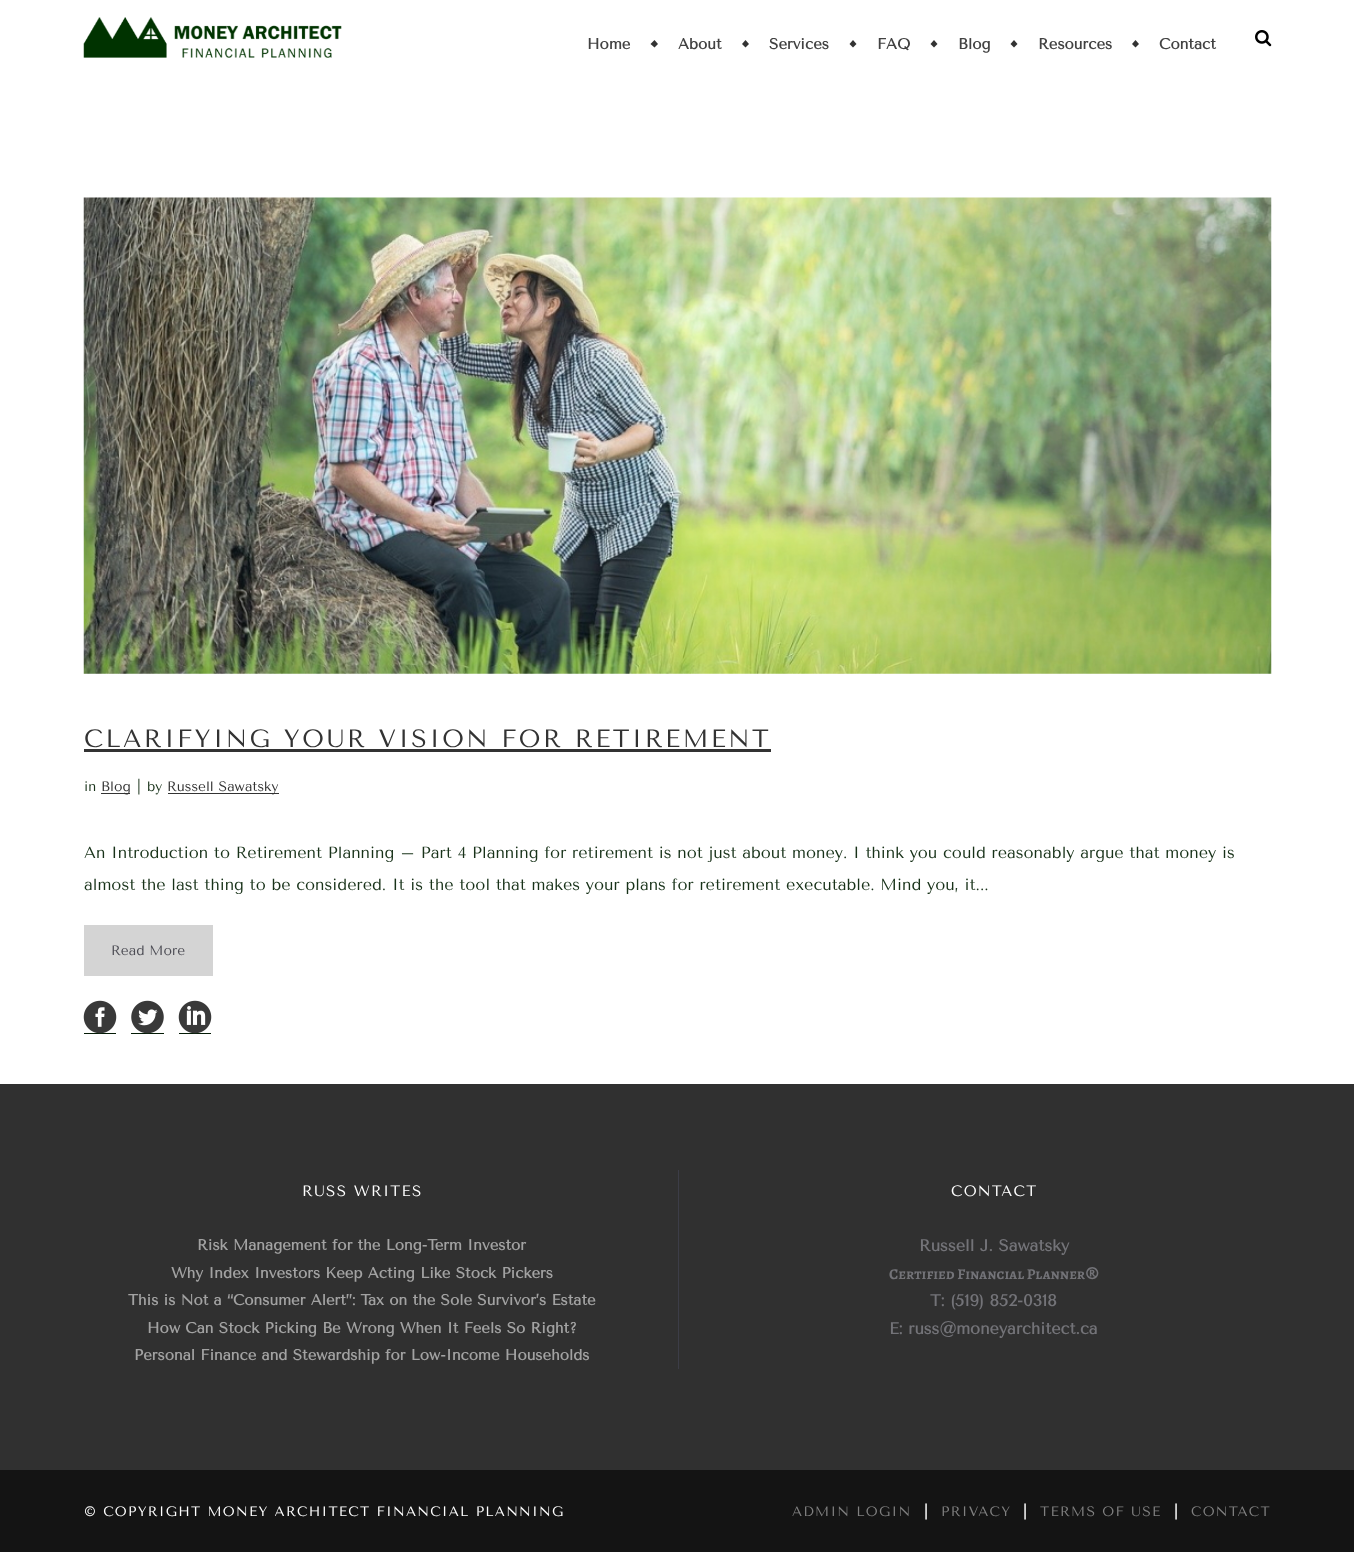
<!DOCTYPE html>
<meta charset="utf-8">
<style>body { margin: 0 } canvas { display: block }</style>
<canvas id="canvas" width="1354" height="1552"></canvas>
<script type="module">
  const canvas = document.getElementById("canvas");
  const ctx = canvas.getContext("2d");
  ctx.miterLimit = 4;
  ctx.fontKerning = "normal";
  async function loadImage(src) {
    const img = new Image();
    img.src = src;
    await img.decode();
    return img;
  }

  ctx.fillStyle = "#141414";
  ctx.fillRect(0, 0, 1354, 1552);
  ctx.fillStyle = "#ffffff";
  ctx.fillRect(0, 0, 1354, 1084);
  ctx.drawImage(await loadImage("img1.png"), 83, 17, 259, 41);
  ctx.font = "bold 15px Tenor Sans";
  ctx.fillStyle = "#424242";
  ctx.fillText("Home", 587, 49);
  ctx.fillStyle = "#333333";
  ctx.beginPath();
  ctx.moveTo(654.5, 40);
  ctx.lineTo(658, 44);
  ctx.lineTo(654.5, 47.5);
  ctx.lineTo(650.5, 44);
  ctx.closePath();
  ctx.fill();
  ctx.fillStyle = "#424242";
  ctx.fillText("About", 678, 49);
  ctx.fillStyle = "#333333";
  ctx.beginPath();
  ctx.moveTo(745.5, 40);
  ctx.lineTo(749, 44);
  ctx.lineTo(745.5, 47.5);
  ctx.lineTo(742, 44);
  ctx.closePath();
  ctx.fill();
  ctx.fillStyle = "#424242";
  ctx.fillText("Services", 769, 49);
  ctx.fillStyle = "#333333";
  ctx.beginPath();
  ctx.moveTo(853, 40);
  ctx.lineTo(856.5, 44);
  ctx.lineTo(853, 47.5);
  ctx.lineTo(849.5, 44);
  ctx.closePath();
  ctx.fill();
  ctx.fillStyle = "#424242";
  ctx.fillText("FAQ", 877, 49);
  ctx.fillStyle = "#333333";
  ctx.beginPath();
  ctx.moveTo(934, 40);
  ctx.lineTo(937.5, 44);
  ctx.lineTo(934, 47.5);
  ctx.lineTo(930.5, 44);
  ctx.closePath();
  ctx.fill();
  ctx.fillStyle = "#424242";
  ctx.fillText("Blog", 958, 49);
  ctx.fillStyle = "#333333";
  ctx.beginPath();
  ctx.moveTo(1014, 40);
  ctx.lineTo(1017.5, 44);
  ctx.lineTo(1014, 47.5);
  ctx.lineTo(1010.5, 44);
  ctx.closePath();
  ctx.fill();
  ctx.fillStyle = "#424242";
  ctx.fillText("Resources", 1038, 49);
  ctx.fillStyle = "#333333";
  ctx.beginPath();
  ctx.moveTo(1135.5, 40);
  ctx.lineTo(1139, 44);
  ctx.lineTo(1135.5, 47.5);
  ctx.lineTo(1132, 44);
  ctx.closePath();
  ctx.fill();
  ctx.fillStyle = "#424242";
  ctx.fillText("Contact", 1159, 49);
  ctx.drawImage(await loadImage("img2.png"), 1255, 30, 17, 17);
  ctx.drawImage(await loadImage("img3.png"), 83, 197, 1189, 477);
  ctx.letterSpacing = "2.5px";
  ctx.font = "25px Tenor Sans";
  ctx.fillStyle = "#333333";
  ctx.fillText("CLARIFYING YOUR VISION FOR RETIREMENT", 84, 747);
  ctx.fillRect(84, 749, 687, 3);
  ctx.letterSpacing = "0px";
  ctx.font = "13.75px Tenor Sans";
  ctx.fillStyle = "#183219";
  ctx.fillText("in", 84, 791);
  ctx.fillStyle = "#333333";
  ctx.fillRect(101, 793, 29, 1);
  ctx.fillText("Blog", 101, 791);
  ctx.fillStyle = "#183219";
  ctx.fillText("|", 137, 791);
  ctx.fillText("by", 147, 791);
  ctx.fillStyle = "#333333";
  ctx.fillRect(168, 793, 111, 1);
  ctx.fillText("Russell Sawatsky", 167, 791);
  ctx.font = "16.25px Tenor Sans";
  ctx.fillStyle = "#183219";
  ctx.fillText("An Introduction to Retirement Planning – Part 4 Planning for retirement is not just about money. I think you could reasonably argue that money is", 84, 858);
  ctx.fillText("almost the last thing to be considered. It is the tool that makes your plans for retirement executable. Mind you, it...", 84, 890);
  ctx.fillStyle = "#d4d4d4";
  ctx.fillRect(84, 925, 129, 51);
  ctx.font = "13.75px Tenor Sans";
  ctx.fillStyle = "#4c4c54";
  ctx.fillText("Read More", 111, 955);
  ctx.fillStyle = "#041b06";
  ctx.fillRect(84, 1033, 32, 1);
  ctx.drawImage(await loadImage("img4.png"), 83, 1000, 34, 34);
  ctx.fillRect(131, 1033, 33, 1);
  ctx.drawImage(await loadImage("img5.png"), 131, 1000, 33, 34);
  ctx.fillRect(179, 1033, 32, 1);
  ctx.drawImage(await loadImage("img6.png"), 178, 1000, 34, 34);
  ctx.fillStyle = "#303030";
  ctx.fillRect(0, 1084, 1354, 386);
  ctx.letterSpacing = "1.25px";
  ctx.font = "15px Tenor Sans";
  ctx.fillStyle = "#ffffff";
  ctx.fillText("RUSS WRITES", 302, 1196);
  ctx.letterSpacing = "0px";
  ctx.font = "bold 15px Tenor Sans";
  ctx.fillStyle = "#a2a2a2";
  ctx.fillText("Risk Management for the Long-Term Investor", 197, 1250);
  ctx.fillText("Why Index Investors Keep Acting Like Stock Pickers", 171, 1278);
  ctx.fillText("This is Not a “Consumer Alert”: Tax on the Sole Survivor’s Estate", 128, 1305);
  ctx.fillText("How Can Stock Picking Be Wrong When It Feels So Right?", 147, 1333);
  ctx.fillText("Personal Finance and Stewardship for Low-Income Households", 134, 1360);
  ctx.fillStyle = "#3c3d47";
  ctx.fillRect(678, 1170, 1, 199);
  ctx.letterSpacing = "1.25px";
  ctx.font = "15px Tenor Sans";
  ctx.fillStyle = "#ffffff";
  ctx.fillText("CONTACT", 951, 1196);
  ctx.letterSpacing = "0px";
  ctx.font = "bold 16.25px Tenor Sans";
  ctx.fillStyle = "#737378";
  ctx.fillText("Russell J. Sawatsky", 919, 1251);
  ctx.font = "bold 15px Alegreya SC";
  ctx.fillText("Certified Financial Planner", 889, 1279);
  ctx.font = "bold 16.25px Tenor Sans";
  ctx.fillText("®", 1085, 1279);
  ctx.fillText("T: (519) 852-0318", 930, 1306);
  ctx.fillText("E: russ@moneyarchitect.ca", 889, 1334);
  ctx.letterSpacing = "1.25px";
  ctx.font = "13.75px Tenor Sans";
  ctx.fillStyle = "#ffffff";
  ctx.fillText("© COPYRIGHT MONEY ARCHITECT FINANCIAL PLANNING", 84, 1516);
  ctx.fillStyle = "#808080";
  ctx.fillText("ADMIN LOGIN", 792, 1516);
  ctx.font = "bold 13.75px Tenor Sans";
  ctx.fillStyle = "#ffffff";
  ctx.fillText("|", 924, 1516);
  ctx.font = "13.75px Tenor Sans";
  ctx.fillStyle = "#808080";
  ctx.fillText("PRIVACY", 941, 1516);
  ctx.font = "bold 13.75px Tenor Sans";
  ctx.fillStyle = "#ffffff";
  ctx.fillText("|", 1023, 1516);
  ctx.font = "13.75px Tenor Sans";
  ctx.fillStyle = "#808080";
  ctx.fillText("TERMS OF USE", 1040, 1516);
  ctx.font = "bold 13.75px Tenor Sans";
  ctx.fillStyle = "#ffffff";
  ctx.fillText("|", 1174, 1516);
  ctx.font = "13.75px Tenor Sans";
  ctx.fillStyle = "#808080";
  ctx.fillText("CONTACT", 1191, 1516);
</script>
